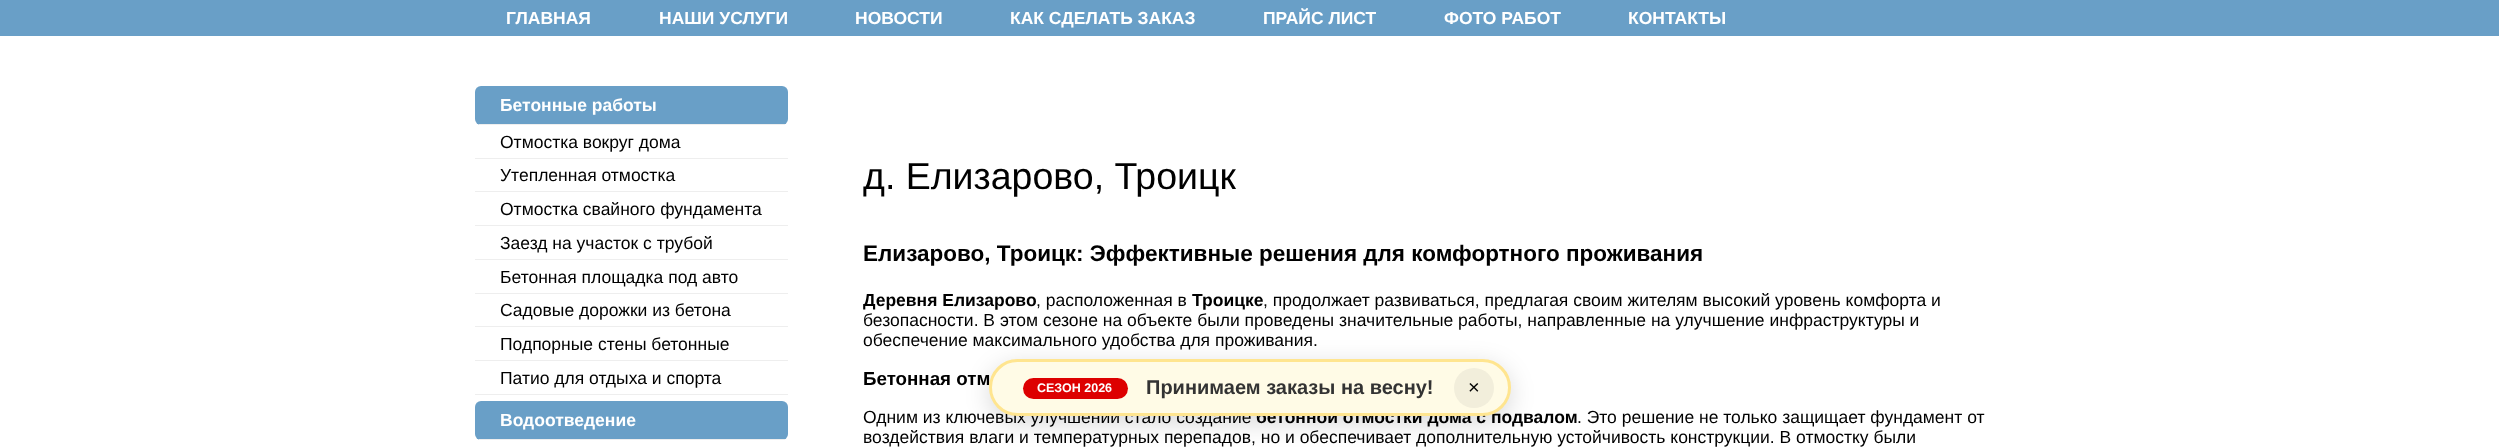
<!DOCTYPE html>
<meta charset="utf-8">
<style>body { margin: 0 } canvas { display: block }</style>
<canvas id="canvas" width="2499" height="447"></canvas>
<script type="module">
  const canvas = document.getElementById("canvas");
  const ctx = canvas.getContext("2d");
  ctx.miterLimit = 4;
  ctx.fontKerning = "normal";

  ctx.fillStyle = "#ffffff";
  ctx.fillRect(0, 0, 2499, 447);
  ctx.fillStyle = "#699fc7";
  ctx.fillRect(0, 0, 2499, 36);
  ctx.font = "bold 17.5px Liberation Sans";
  ctx.fillStyle = "#ffffff";
  ctx.fillText("ГЛАВНАЯ", 506, 24);
  ctx.fillText("НАШИ УСЛУГИ", 659, 24);
  ctx.fillText("НОВОСТИ", 855, 24);
  ctx.fillText("КАК СДЕЛАТЬ ЗАКАЗ", 1010, 24);
  ctx.fillText("ПРАЙС ЛИСТ", 1263, 24);
  ctx.fillText("ФОТО РАБОТ", 1444, 24);
  ctx.fillText("КОНТАКТЫ", 1628, 24);
  ctx.fillStyle = "#699fc7";
  ctx.beginPath();
  ctx.roundRect(475, 86, 313, 39, 6);
  ctx.fill();
  ctx.fillStyle = "#eeeeee";
  ctx.fillRect(479, 124, 306, 1);
  ctx.fillStyle = "#ffffff";
  ctx.fillText("Бетонные работы", 500, 111);
  ctx.fillStyle = "#eeeeee";
  ctx.fillRect(475, 158, 313, 1);
  ctx.font = "17.5px Liberation Sans";
  ctx.fillStyle = "#000000";
  ctx.fillText("Отмостка вокруг дома", 500, 148);
  ctx.fillStyle = "#eeeeee";
  ctx.fillRect(475, 191, 313, 1);
  ctx.fillStyle = "#000000";
  ctx.fillText("Утепленная отмостка", 500, 181);
  ctx.fillStyle = "#eeeeee";
  ctx.fillRect(475, 225, 313, 1);
  ctx.fillStyle = "#000000";
  ctx.fillText("Отмостка cвайного фундамента", 500, 215);
  ctx.fillStyle = "#eeeeee";
  ctx.fillRect(475, 259, 313, 1);
  ctx.fillStyle = "#000000";
  ctx.fillText("Заезд на участок с трубой", 500, 249);
  ctx.fillStyle = "#eeeeee";
  ctx.fillRect(475, 293, 313, 1);
  ctx.fillStyle = "#000000";
  ctx.fillText("Бетонная площадка под авто", 500, 283);
  ctx.fillStyle = "#eeeeee";
  ctx.fillRect(475, 326, 313, 1);
  ctx.fillStyle = "#000000";
  ctx.fillText("Садовые дорожки из бетона", 500, 316);
  ctx.fillStyle = "#eeeeee";
  ctx.fillRect(475, 360, 313, 1);
  ctx.fillStyle = "#000000";
  ctx.fillText("Подпорные стены бетонные", 500, 350);
  ctx.fillStyle = "#eeeeee";
  ctx.fillRect(475, 394, 313, 1);
  ctx.fillStyle = "#000000";
  ctx.fillText("Патио для отдыха и спорта", 500, 384);
  ctx.fillStyle = "#699fc7";
  ctx.beginPath();
  ctx.roundRect(475, 401, 313, 39, 6);
  ctx.fill();
  ctx.fillStyle = "#eeeeee";
  ctx.fillRect(479, 439, 306, 1);
  ctx.font = "bold 17.5px Liberation Sans";
  ctx.fillStyle = "#ffffff";
  ctx.fillText("Водоотведение", 500, 426);
  ctx.font = "37.5px Liberation Sans";
  ctx.fillStyle = "#000000";
  ctx.fillText("д. Елизарово, Троицк", 863, 189);
  ctx.font = "bold 22.5px Liberation Sans";
  ctx.fillText("Елизарово, Троицк: Эффективные решения для комфортного проживания", 863, 261);
  ctx.font = "bold 17.5px Liberation Sans";
  ctx.fillText("Деревня Елизарово", 863, 306);
  ctx.font = "17.5px Liberation Sans";
  ctx.fillText(", расположенная в", 1036, 306);
  ctx.font = "bold 17.5px Liberation Sans";
  ctx.fillText("Троицке", 1192, 306);
  ctx.font = "17.5px Liberation Sans";
  ctx.fillText(", продолжает развиваться, предлагая своим жителям высокий уровень комфорта и", 1263, 306);
  ctx.fillText("безопасности. В этом сезоне на объекте были проведены значительные работы, направленные на улучшение инфраструктуры и", 863, 326);
  ctx.fillText("обеспечение максимального удобства для проживания.", 863, 346);
  ctx.font = "bold 18.75px Liberation Sans";
  ctx.fillText("Бетонная отм", 863, 385);
  ctx.font = "17.5px Liberation Sans";
  ctx.fillText("Одним из ключевых улучшений стало создание", 863, 423);
  ctx.font = "bold 17.5px Liberation Sans";
  ctx.fillText("бетонной отмостки дома с подвалом", 1256, 423);
  ctx.font = "17.5px Liberation Sans";
  ctx.fillText(". Это решение не только защищает фундамент от", 1577, 423);
  ctx.fillText("воздействия влаги и температурных перепадов, но и обеспечивает дополнительную устойчивость конструкции. В отмостку были", 863, 443);
  ctx.fillStyle = "rgba(0, 0, 0, 0.15)";
  ctx.filter = "blur(12.5px)";
  ctx.beginPath();
  ctx.roundRect(989, 365, 522, 58, 29);
  ctx.fill();
  ctx.filter = "none";
  ctx.fillStyle = "#fffbe6";
  ctx.beginPath();
  ctx.roundRect(990.5, 360.5, 519, 54, 27);
  ctx.fill();
  ctx.strokeStyle = "#ffe58f";
  ctx.lineWidth = 3;
  ctx.stroke();
  ctx.fillStyle = "#dd0000";
  ctx.beginPath();
  ctx.roundRect(1023, 378, 105, 21, 10.5);
  ctx.fill();
  ctx.font = "bold 12.5px Liberation Sans";
  ctx.fillStyle = "#ffffff";
  ctx.fillText("СЕЗОН 2026", 1037, 392);
  ctx.font = "bold 20px Liberation Sans";
  ctx.fillStyle = "#333333";
  ctx.fillText("Принимаем заказы на весну!", 1146, 394);
  ctx.fillStyle = "#f2eedb";
  ctx.beginPath();
  ctx.arc(1474, 388, 20, 0, Math.PI * 2);
  ctx.fill();
  ctx.font = "20px Liberation Sans";
  ctx.fillStyle = "#000000";
  ctx.fillText("×", 1468, 394);
</script>
